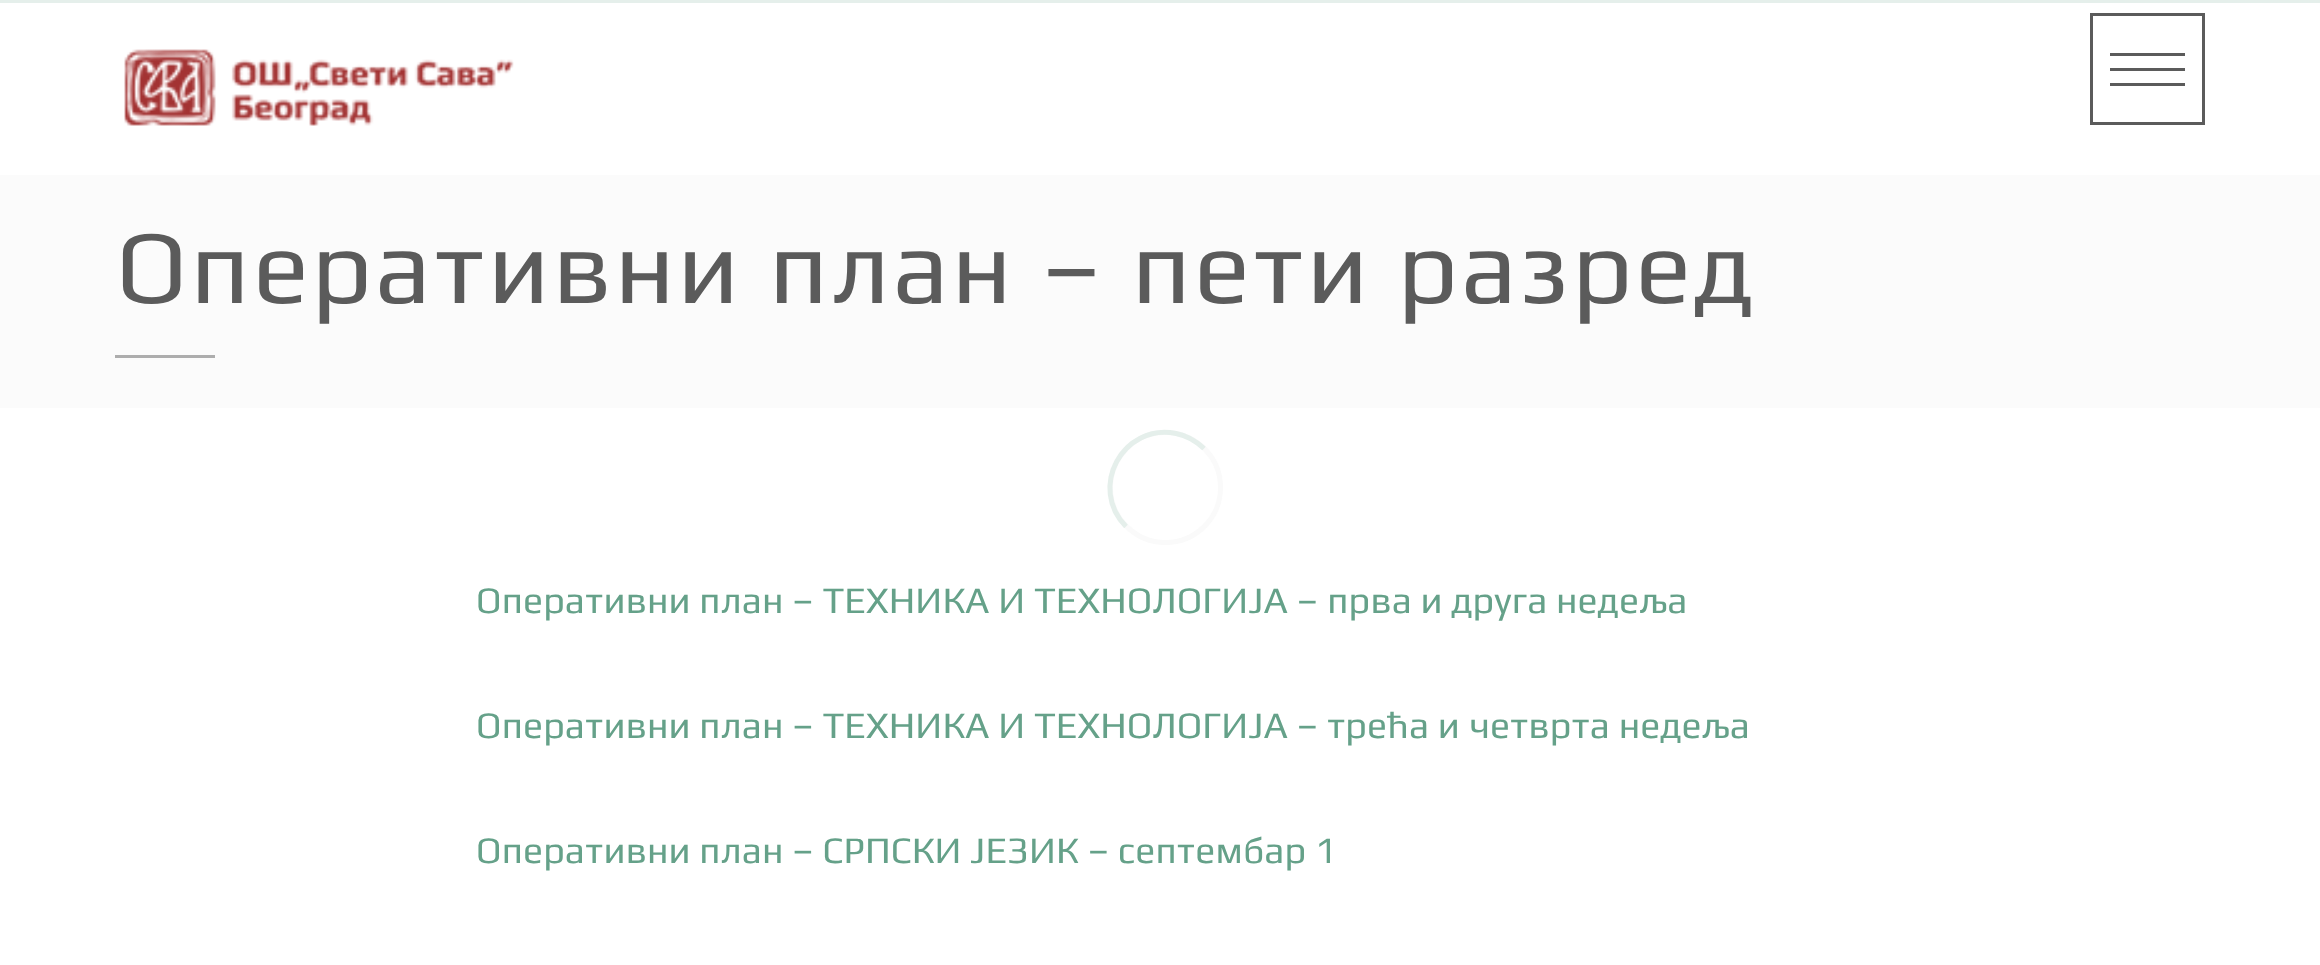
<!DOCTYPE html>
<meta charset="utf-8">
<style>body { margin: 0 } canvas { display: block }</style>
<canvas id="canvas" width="2320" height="965"></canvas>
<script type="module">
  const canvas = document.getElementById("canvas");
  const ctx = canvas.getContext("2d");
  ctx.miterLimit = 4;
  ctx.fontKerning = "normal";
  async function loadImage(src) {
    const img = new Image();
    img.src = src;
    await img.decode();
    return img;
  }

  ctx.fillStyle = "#ffffff";
  ctx.fillRect(0, 0, 2320, 965);
  ctx.fillStyle = "#e5efeb";
  ctx.fillRect(0, 0, 2320, 3);
  ctx.beginPath();
  ctx.arc(1165.5, 487.5, 55, 0, Math.PI * 2);
  ctx.strokeStyle = "#fafafa";
  ctx.lineWidth = 5;
  ctx.stroke();
  ctx.beginPath();
  ctx.moveTo(1126, 526.5);
  ctx.bezierCurveTo(1088, 488, 1122.5, 423, 1176, 433.5);
  ctx.bezierCurveTo(1186.5, 435.5, 1196, 441, 1204, 448.5);
  ctx.strokeStyle = "#e5efeb";
  ctx.stroke();
  ctx.drawImage(await loadImage("img1.png"), 124, 49, 390, 77);
  ctx.strokeStyle = "#5b5b5b";
  ctx.lineWidth = 3;
  ctx.strokeRect(2091.5, 14.5, 112, 109);
  ctx.fillStyle = "#5b5b5b";
  ctx.fillRect(2110, 53, 75, 3);
  ctx.fillRect(2110, 68, 75, 3);
  ctx.fillRect(2110, 83, 75, 3);
  ctx.fillStyle = "#fbfbfb";
  ctx.fillRect(0, 175, 2320, 233);
  ctx.letterSpacing = "2.5px";
  ctx.font = "105px Play";
  ctx.fillStyle = "#5b5b5b";
  ctx.fillText("Оперативни план – пети разред", 116, 303);
  ctx.fillStyle = "#adadad";
  ctx.fillRect(115, 355, 100, 3);
  ctx.letterSpacing = "0px";
  ctx.font = "37.5px Play";
  ctx.fillStyle = "#65a189";
  ctx.fillText("Oперативни план – ТЕХНИКА И ТЕХНОЛОГИЈА – прва и друга недеља", 476, 613);
  ctx.fillText("Oперативни план – ТЕХНИКА И ТЕХНОЛОГИЈА – трећа и четврта недеља", 476, 738);
  ctx.fillText("Оперативни план – СРПСКИ ЈЕЗИК – септембар 1", 476, 863);
</script>
